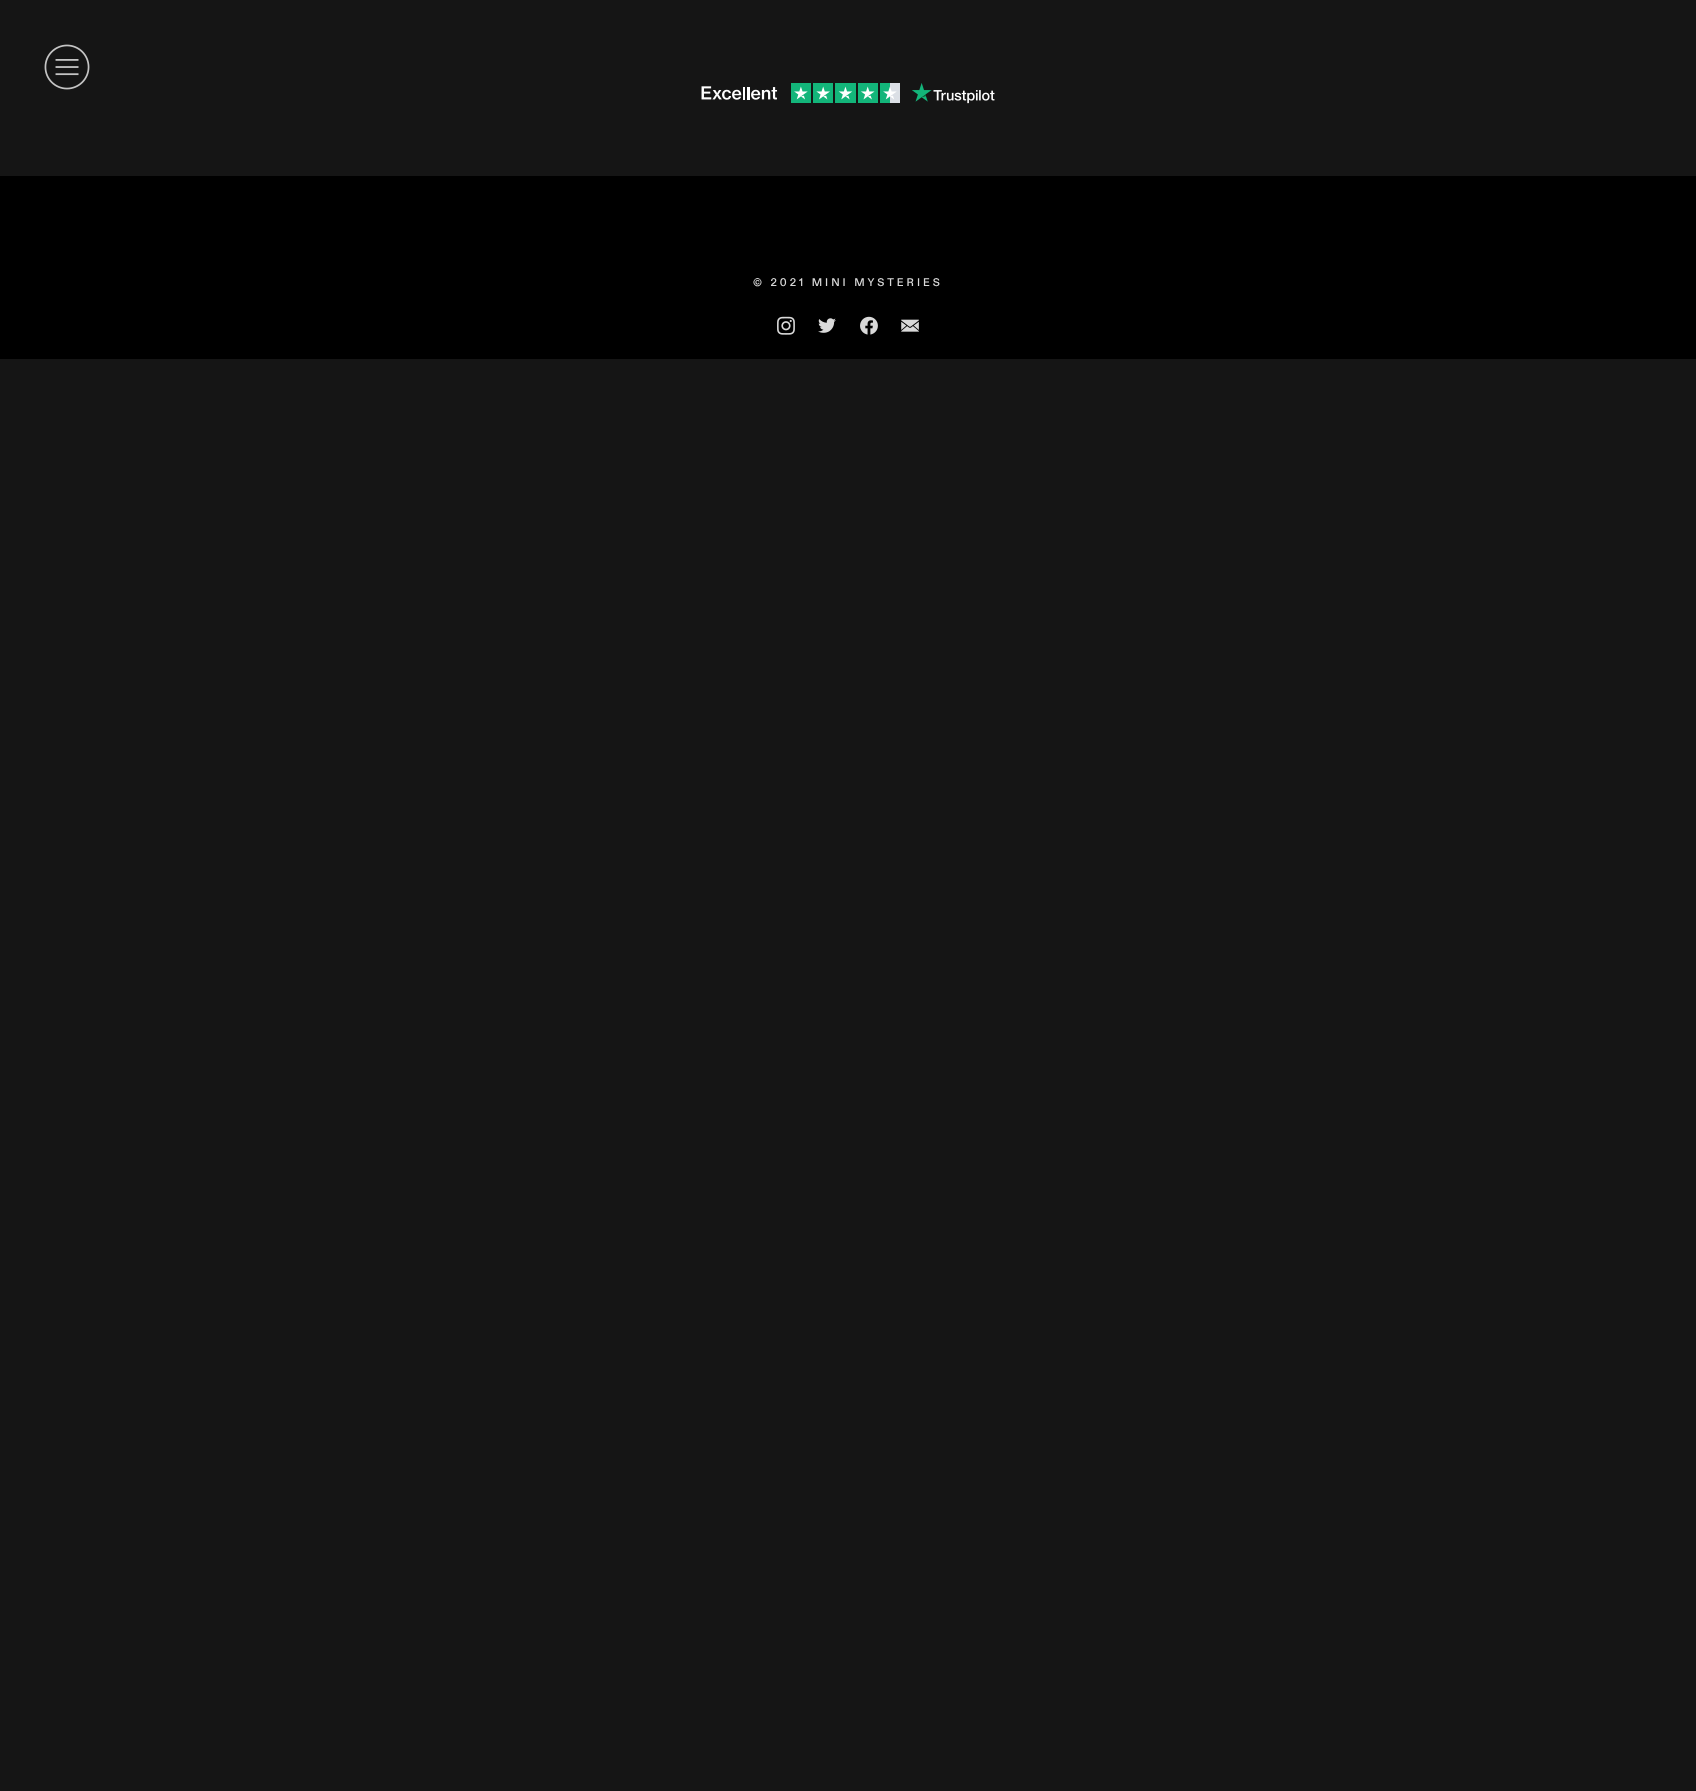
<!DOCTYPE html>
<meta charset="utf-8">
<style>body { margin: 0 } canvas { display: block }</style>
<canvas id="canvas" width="1696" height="1791"></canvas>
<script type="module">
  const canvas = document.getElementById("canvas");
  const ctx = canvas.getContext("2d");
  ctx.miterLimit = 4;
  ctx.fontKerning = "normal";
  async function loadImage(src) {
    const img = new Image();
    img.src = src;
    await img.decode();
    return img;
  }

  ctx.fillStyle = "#151515";
  ctx.fillRect(0, 0, 1696, 1791);
  ctx.drawImage(await loadImage("img1.png"), 44, 44, 46, 46);
  ctx.drawImage(await loadImage("img2.png"), 701, 83, 294, 21);
  ctx.fillStyle = "#000000";
  ctx.fillRect(0, 176, 1696, 183);
  ctx.letterSpacing = "3px";
  ctx.font = "500 11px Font";
  ctx.fillStyle = "#d9d9d9";
  ctx.fillText("© 2021 MINI MYSTERIES", 753, 286);
  ctx.drawImage(await loadImage("img3.png"), 777, 316, 18, 19);
  ctx.drawImage(await loadImage("img4.png"), 818, 318, 18, 15);
  ctx.drawImage(await loadImage("img5.png"), 860, 316, 18, 19);
  ctx.drawImage(await loadImage("img6.png"), 901, 319, 18, 13);
</script>
